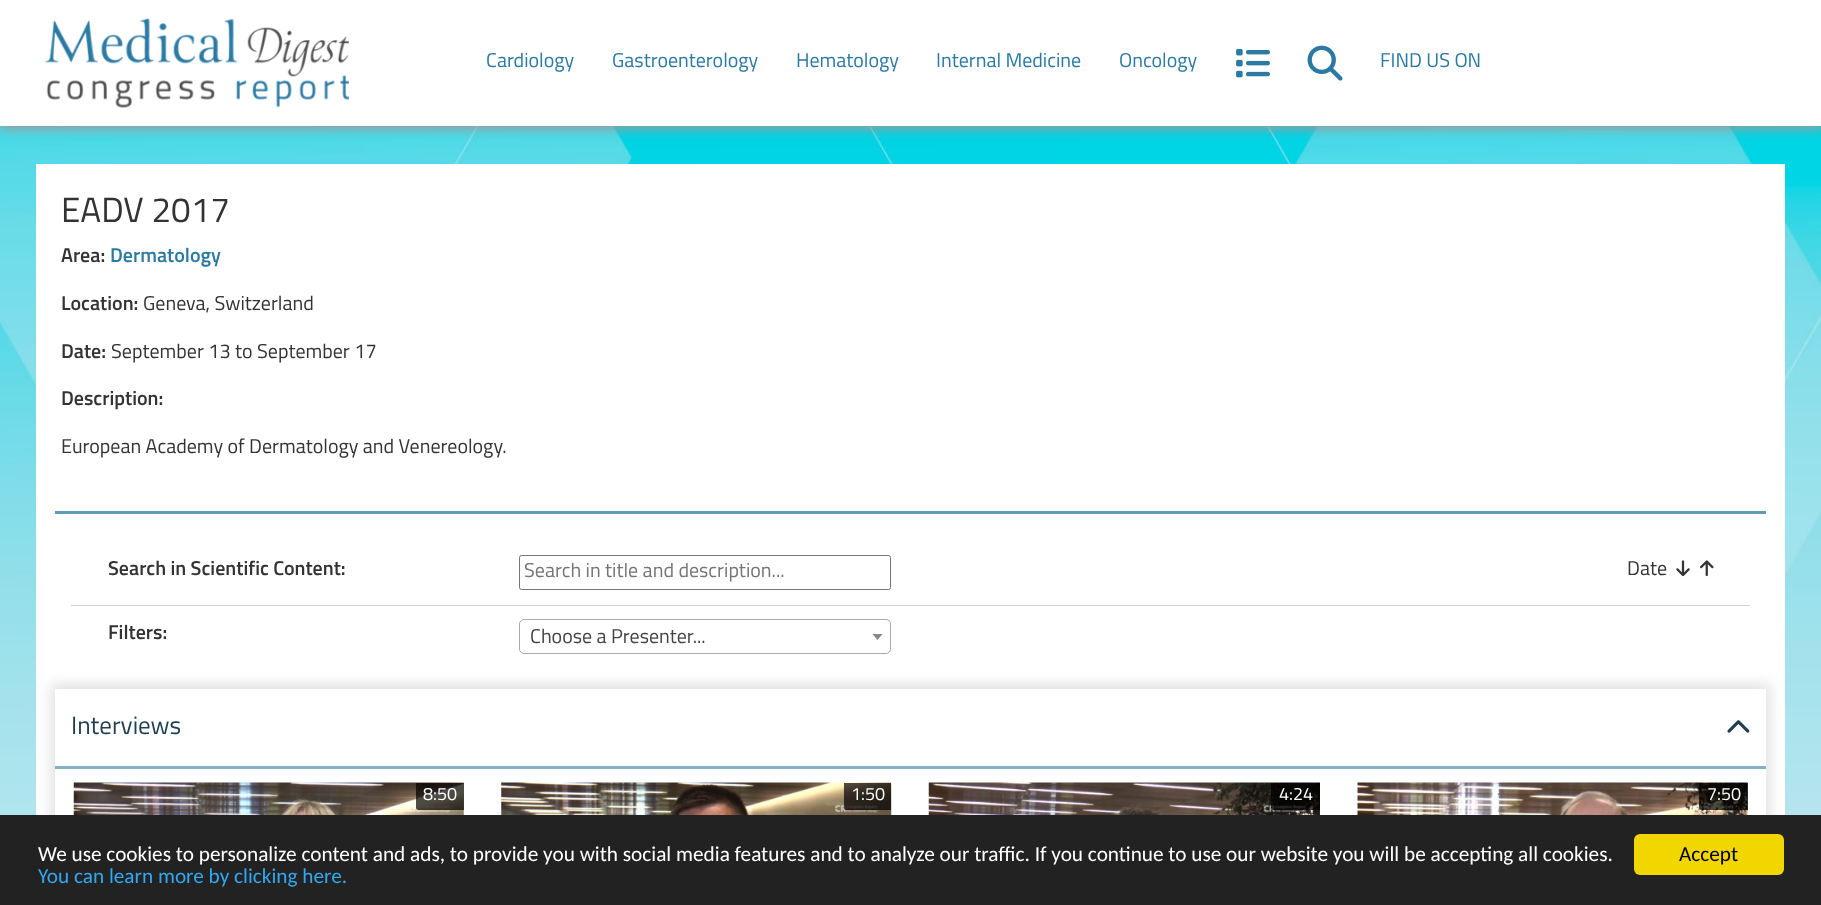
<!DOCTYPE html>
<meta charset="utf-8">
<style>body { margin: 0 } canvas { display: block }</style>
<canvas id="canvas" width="1821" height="905"></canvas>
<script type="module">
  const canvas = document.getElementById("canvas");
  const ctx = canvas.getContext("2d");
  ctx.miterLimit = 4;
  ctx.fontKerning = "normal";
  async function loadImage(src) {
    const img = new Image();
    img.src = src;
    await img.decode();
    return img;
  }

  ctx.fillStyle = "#ffffff";
  ctx.fillRect(0, 0, 1821, 905);
  ctx.drawImage(await loadImage("img1.png"), 0, 126, 1821, 689);
  ctx.fillStyle = "#9a9a9a";
  ctx.filter = "blur(5.5px)";
  ctx.beginPath();
  ctx.rect(0, 0, 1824, 129);
  ctx.fill();
  ctx.filter = "none";
  ctx.fillStyle = "#ffffff";
  ctx.fillRect(0, 0, 1821, 126);
  ctx.drawImage(await loadImage("img2.png"), 44, 18, 305, 90);
  ctx.font = "20px Cairo";
  ctx.fillStyle = "#2b7aa3";
  ctx.fillText("Cardiology", 486, 67);
  ctx.fillText("Gastroenterology", 612, 67);
  ctx.fillText("Hematology", 796, 67);
  ctx.fillText("Internal Medicine", 936, 67);
  ctx.fillText("Oncology", 1119, 67);
  ctx.drawImage(await loadImage("img3.png"), 1236, 48, 34, 30);
  ctx.drawImage(await loadImage("img4.png"), 1307, 45, 36, 36);
  ctx.fillText("FIND US ON", 1380, 67);
  ctx.fillStyle = "#ffffff";
  ctx.fillRect(36, 164, 1749, 651);
  ctx.font = "35px Cairo";
  ctx.fillStyle = "#333333";
  ctx.fillText("EADV 2017", 61, 222);
  ctx.font = "600 20px Cairo";
  ctx.fillText("Area:", 61, 262);
  ctx.fillStyle = "#2b7aa3";
  ctx.fillText("Dermatology", 110, 262);
  ctx.fillStyle = "#333333";
  ctx.fillText("Location:", 61, 310);
  ctx.font = "20px Cairo";
  ctx.fillText("Geneva, Switzerland", 143, 310);
  ctx.font = "600 20px Cairo";
  ctx.fillText("Date:", 61, 358);
  ctx.font = "20px Cairo";
  ctx.fillText("September 13 to September 17", 111, 358);
  ctx.font = "600 20px Cairo";
  ctx.fillText("Description:", 61, 405);
  ctx.font = "20px Cairo";
  ctx.fillText("European Academy of Dermatology and Venereology.", 61, 453);
  ctx.fillStyle = "#5d9bbb";
  ctx.fillRect(55, 511, 1711, 3);
  ctx.font = "600 20px Cairo";
  ctx.fillStyle = "#333333";
  ctx.fillText("Search in Scientific Content:", 108, 575);
  ctx.beginPath();
  ctx.roundRect(519.5, 555.5, 371, 34, 2);
  ctx.strokeStyle = "#767676";
  ctx.stroke();
  ctx.save();
  ctx.beginPath();
  ctx.rect(524, 563, 362, 20);
  ctx.clip();
  ctx.font = "20px Cairo";
  ctx.fillStyle = "#757575";
  ctx.fillText("Search in title and description...", 524, 577);
  ctx.restore();
  ctx.font = "20px Cairo";
  ctx.fillText("Date", 1627, 575);
  ctx.drawImage(await loadImage("img5.png"), 1676, 560, 14, 17);
  ctx.drawImage(await loadImage("img6.png"), 1700, 560, 14, 17);
  ctx.fillStyle = "#d3d3d3";
  ctx.fillRect(71, 605, 1679, 1);
  ctx.font = "600 20px Cairo";
  ctx.fillStyle = "#333333";
  ctx.fillText("Filters:", 108, 639);
  ctx.beginPath();
  ctx.roundRect(519.5, 619.5, 371, 34, 4.5);
  ctx.strokeStyle = "#aaaaaa";
  ctx.stroke();
  ctx.font = "20px Cairo";
  ctx.fillStyle = "#444444";
  ctx.fillText("Choose a Presenter...", 530, 643);
  ctx.fillStyle = "#888888";
  ctx.beginPath();
  ctx.moveTo(872.5, 634);
  ctx.lineTo(882.5, 634);
  ctx.lineTo(877.5, 640);
  ctx.closePath();
  ctx.fill();
  ctx.save();
  ctx.beginPath();
  ctx.moveTo(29, 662);
  ctx.lineTo(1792, 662);
  ctx.lineTo(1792, 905);
  ctx.lineTo(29, 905);
  ctx.closePath();
  ctx.moveTo(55, 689);
  ctx.lineTo(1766, 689);
  ctx.lineTo(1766, 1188);
  ctx.lineTo(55, 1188);
  ctx.closePath();
  ctx.clip("evenodd");
  ctx.fillStyle = "rgba(0, 0, 0, 0.12)";
  ctx.filter = "blur(7px)";
  ctx.beginPath();
  ctx.rect(51, 684, 1719, 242);
  ctx.fill();
  ctx.filter = "none";
  ctx.restore();
  ctx.fillStyle = "#82b1c9";
  ctx.fillRect(55, 766, 1711, 3);
  ctx.font = "25px Cairo";
  ctx.fillStyle = "#1f3f50";
  ctx.fillText("Interviews", 71, 734);
  ctx.drawImage(await loadImage("img7.png"), 1727, 720, 23, 13);
  ctx.drawImage(await loadImage("img8.png"), 73, 782, 391, 33);
  ctx.fillStyle = "rgba(0, 0, 0, 0.7)";
  ctx.beginPath();
  ctx.roundRect(416, 783, 48, 27, [0, 0, 0, 2.5]);
  ctx.fill();
  ctx.font = "18px Cairo";
  ctx.fillStyle = "#ffffff";
  ctx.fillText("8:50", 423, 800);
  ctx.drawImage(await loadImage("img9.png"), 501, 782, 391, 33);
  ctx.fillStyle = "rgba(0, 0, 0, 0.7)";
  ctx.beginPath();
  ctx.roundRect(844, 783, 47, 27, [0, 0, 0, 2.5]);
  ctx.fill();
  ctx.fillStyle = "#ffffff";
  ctx.fillText("1:50", 851, 800);
  ctx.drawImage(await loadImage("img10.png"), 928, 782, 392, 33);
  ctx.fillStyle = "rgba(0, 0, 0, 0.7)";
  ctx.beginPath();
  ctx.roundRect(1271, 783, 49, 27, [0, 0, 0, 2.5]);
  ctx.fill();
  ctx.fillStyle = "#ffffff";
  ctx.fillText("4:24", 1279, 800);
  ctx.drawImage(await loadImage("img11.png"), 1357, 782, 391, 33);
  ctx.fillStyle = "rgba(0, 0, 0, 0.7)";
  ctx.beginPath();
  ctx.roundRect(1699, 783, 49, 27, [0, 0, 0, 2.5]);
  ctx.fill();
  ctx.fillStyle = "#ffffff";
  ctx.fillText("7:50", 1707, 800);
  ctx.fillStyle = "#222222";
  ctx.fillRect(0, 815, 1821, 90);
  ctx.font = "21.25px Carlito";
  ctx.fillStyle = "#ffffff";
  ctx.fillText("We use cookies to personalize content and ads, to provide you with social media features and to analyze our traffic. If you continue to use our website you will be accepting all cookies.", 38, 861);
  ctx.fillStyle = "#31a8f0";
  ctx.fillText("You can learn more by clicking here.", 38, 883);
  ctx.fillStyle = "#f1d600";
  ctx.beginPath();
  ctx.roundRect(1634, 834, 150, 41, 6);
  ctx.fill();
  ctx.fillStyle = "#000000";
  ctx.fillText("Accept", 1679, 861);
</script>
